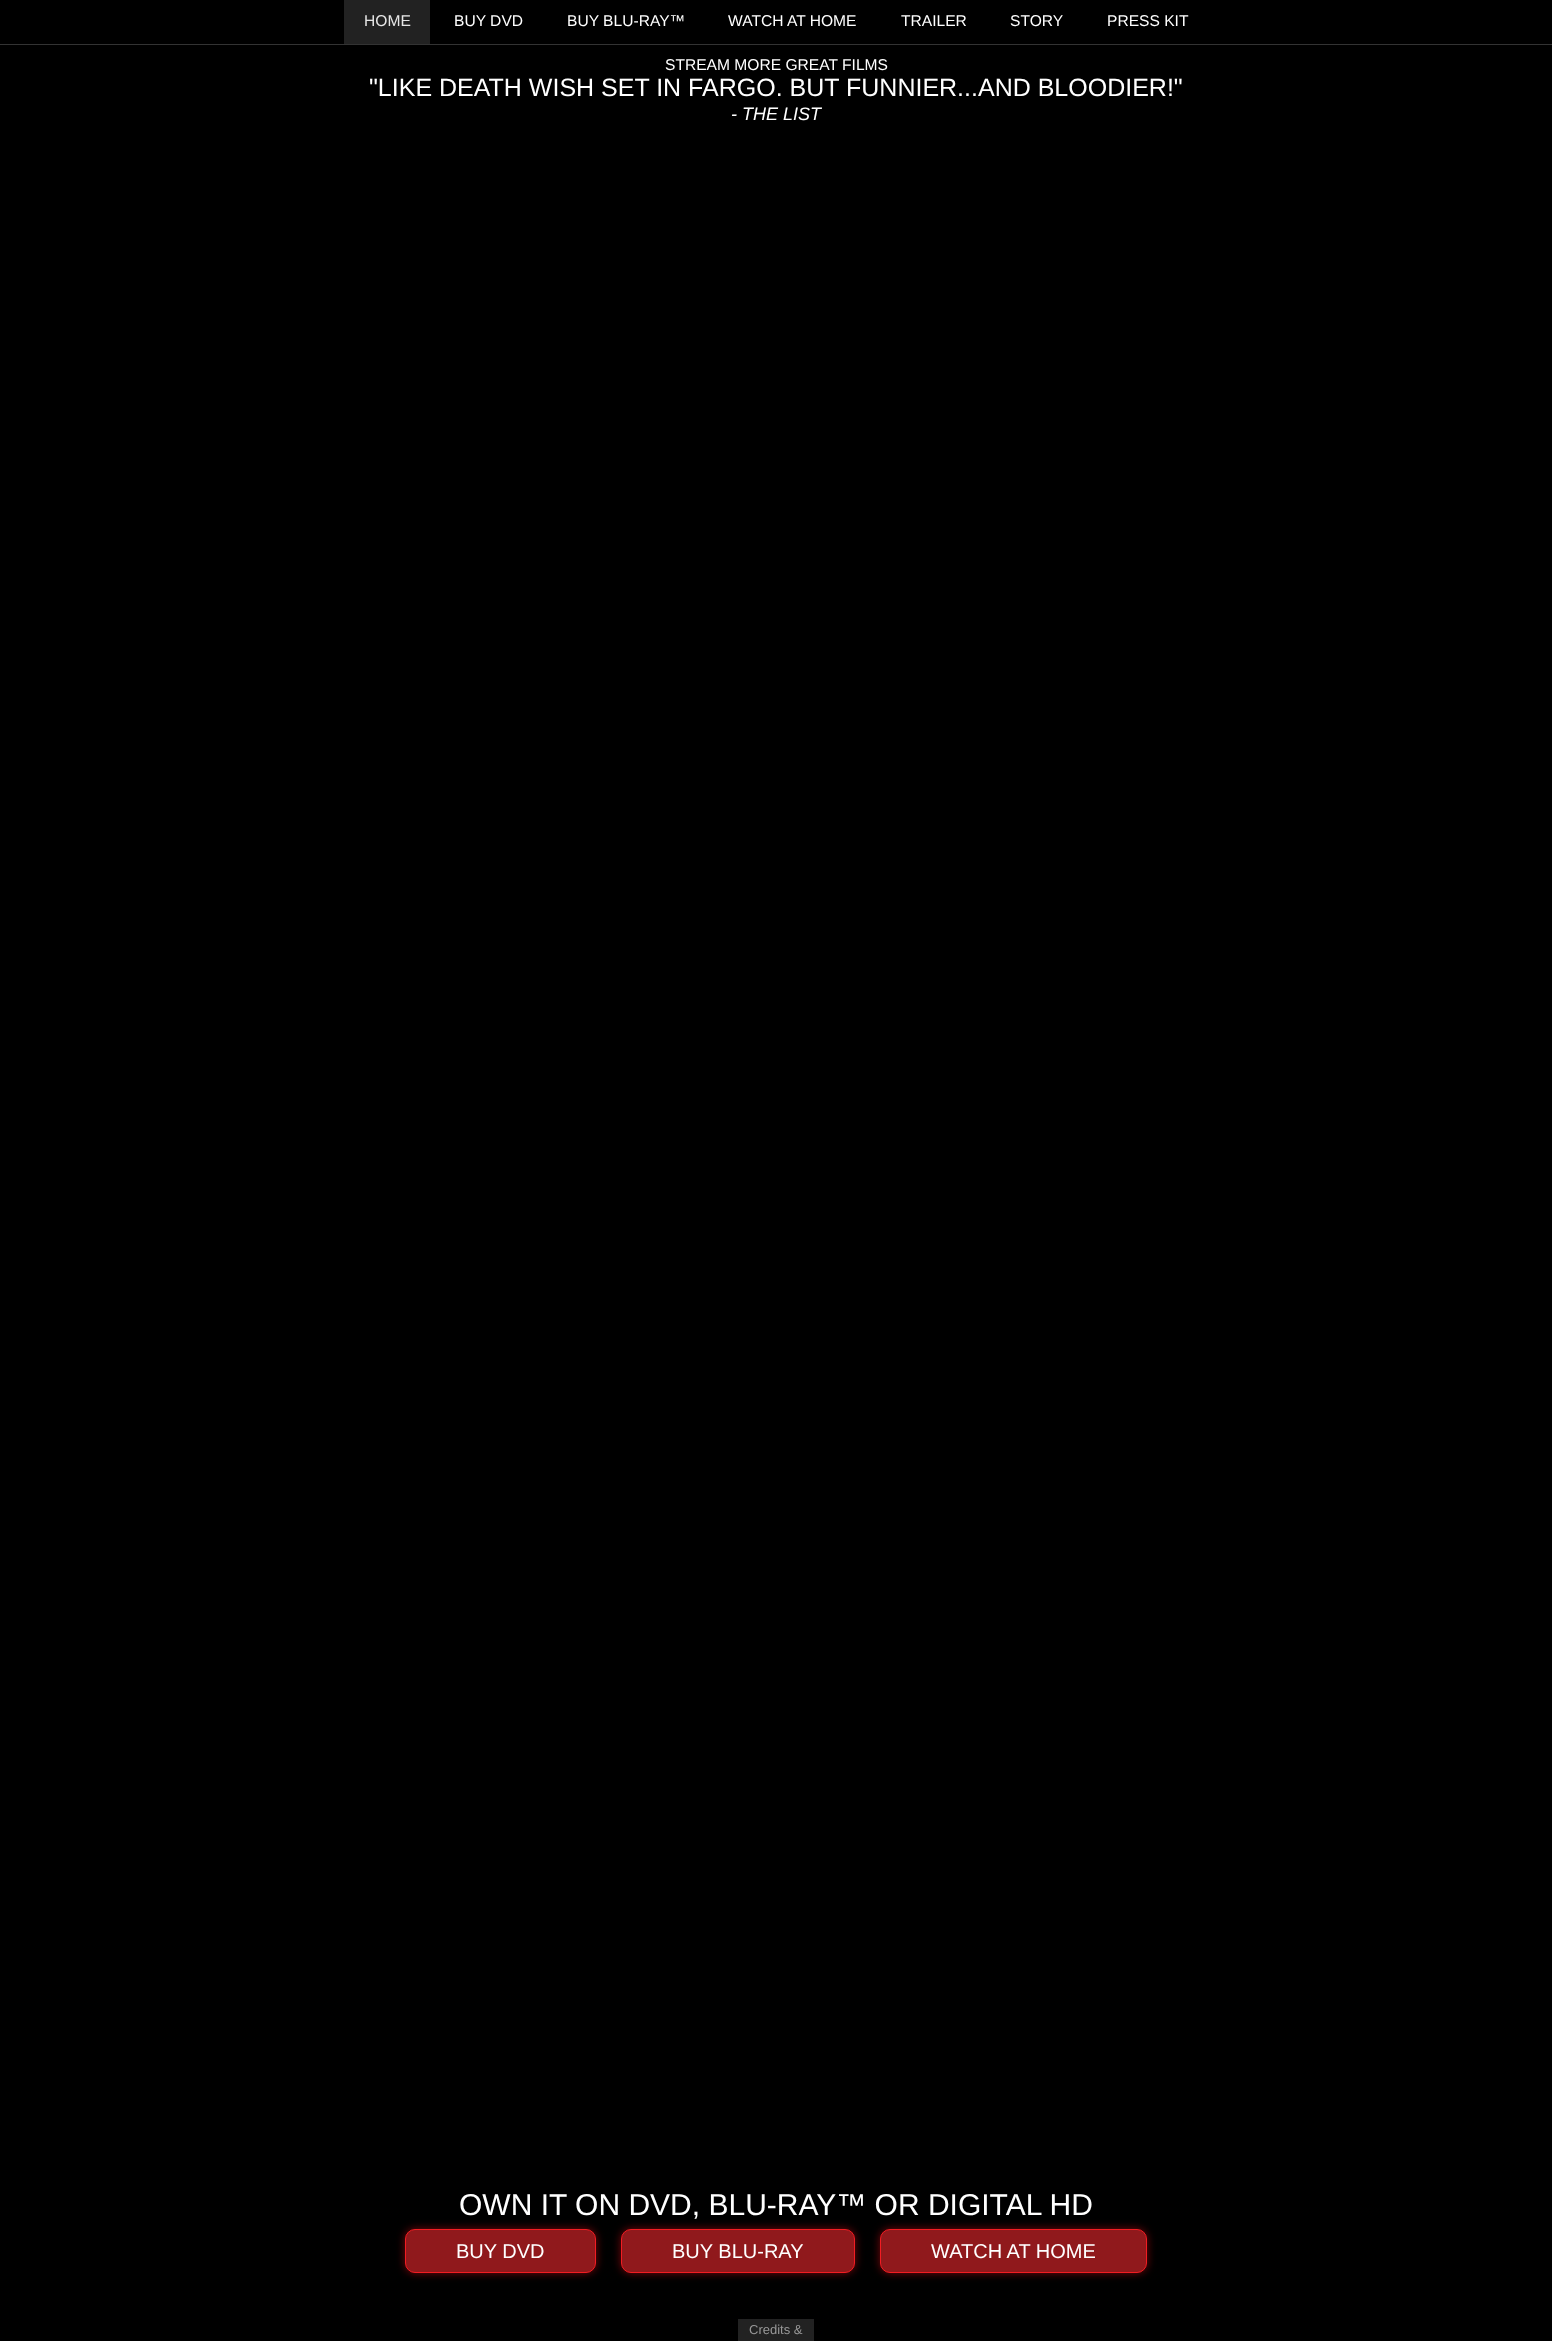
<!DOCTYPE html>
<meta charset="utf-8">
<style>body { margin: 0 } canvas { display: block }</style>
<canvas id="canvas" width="1552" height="2341"></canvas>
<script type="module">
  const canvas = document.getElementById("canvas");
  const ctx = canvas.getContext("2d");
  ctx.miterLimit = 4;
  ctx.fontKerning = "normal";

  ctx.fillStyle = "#000000";
  ctx.fillRect(0, 0, 1552, 2341);
  ctx.fillStyle = "#333333";
  ctx.fillRect(0, 44, 1552, 1);
  ctx.fillStyle = "#222222";
  ctx.fillRect(344, 0, 86, 44);
  ctx.font = "15.6px Liberation Sans";
  ctx.fillStyle = "#e6e6e6";
  ctx.fillText("HOME", 364, 26);
  ctx.fillStyle = "#ffffff";
  ctx.fillText("BUY DVD", 454, 26);
  ctx.fillText("BUY BLU-RAY™", 567, 26);
  ctx.fillText("WATCH AT HOME", 728, 26);
  ctx.fillText("TRAILER", 901, 26);
  ctx.fillText("STORY", 1010, 26);
  ctx.fillText("PRESS KIT", 1107, 26);
  ctx.fillText("STREAM MORE GREAT FILMS", 665, 70);
  ctx.font = "25px Liberation Sans";
  ctx.fillText("\"LIKE DEATH WISH SET IN FARGO. BUT FUNNIER...AND BLOODIER!\"", 369, 96);
  ctx.font = "italic 18px Liberation Sans";
  ctx.fillText("- THE LIST", 731, 120);
  ctx.font = "30px Liberation Sans";
  ctx.fillText("OWN IT ON DVD, BLU-RAY™ OR DIGITAL HD", 459, 2215);
  ctx.fillStyle = "rgba(201, 10, 16, 0.6)";
  ctx.filter = "blur(4px)";
  ctx.beginPath();
  ctx.roundRect(405, 2229, 191, 44, 10);
  ctx.fill();
  ctx.filter = "none";
  ctx.fillStyle = "#90191c";
  ctx.beginPath();
  ctx.roundRect(405.5, 2229.5, 190, 43, 9.5);
  ctx.fill();
  ctx.strokeStyle = "#f21c22";
  ctx.stroke();
  ctx.font = "20px Liberation Sans";
  ctx.fillStyle = "#ffffff";
  ctx.fillText("BUY DVD", 456, 2258);
  ctx.fillStyle = "rgba(201, 10, 16, 0.6)";
  ctx.filter = "blur(4px)";
  ctx.beginPath();
  ctx.roundRect(621, 2229, 234, 44, 10);
  ctx.fill();
  ctx.filter = "none";
  ctx.fillStyle = "#90191c";
  ctx.beginPath();
  ctx.roundRect(621.5, 2229.5, 233, 43, 9.5);
  ctx.fill();
  ctx.stroke();
  ctx.fillStyle = "#ffffff";
  ctx.fillText("BUY BLU-RAY", 672, 2258);
  ctx.fillStyle = "rgba(201, 10, 16, 0.6)";
  ctx.filter = "blur(4px)";
  ctx.beginPath();
  ctx.roundRect(880, 2229, 267, 44, 10);
  ctx.fill();
  ctx.filter = "none";
  ctx.fillStyle = "#90191c";
  ctx.beginPath();
  ctx.roundRect(880.5, 2229.5, 266, 43, 9.5);
  ctx.fill();
  ctx.stroke();
  ctx.fillStyle = "#ffffff";
  ctx.fillText("WATCH AT HOME", 931, 2258);
  ctx.fillStyle = "#222222";
  ctx.fillRect(738, 2319, 76, 22);
  ctx.font = "13px Liberation Sans";
  ctx.fillStyle = "#999999";
  ctx.fillText("Credits &", 749, 2334);
</script>
